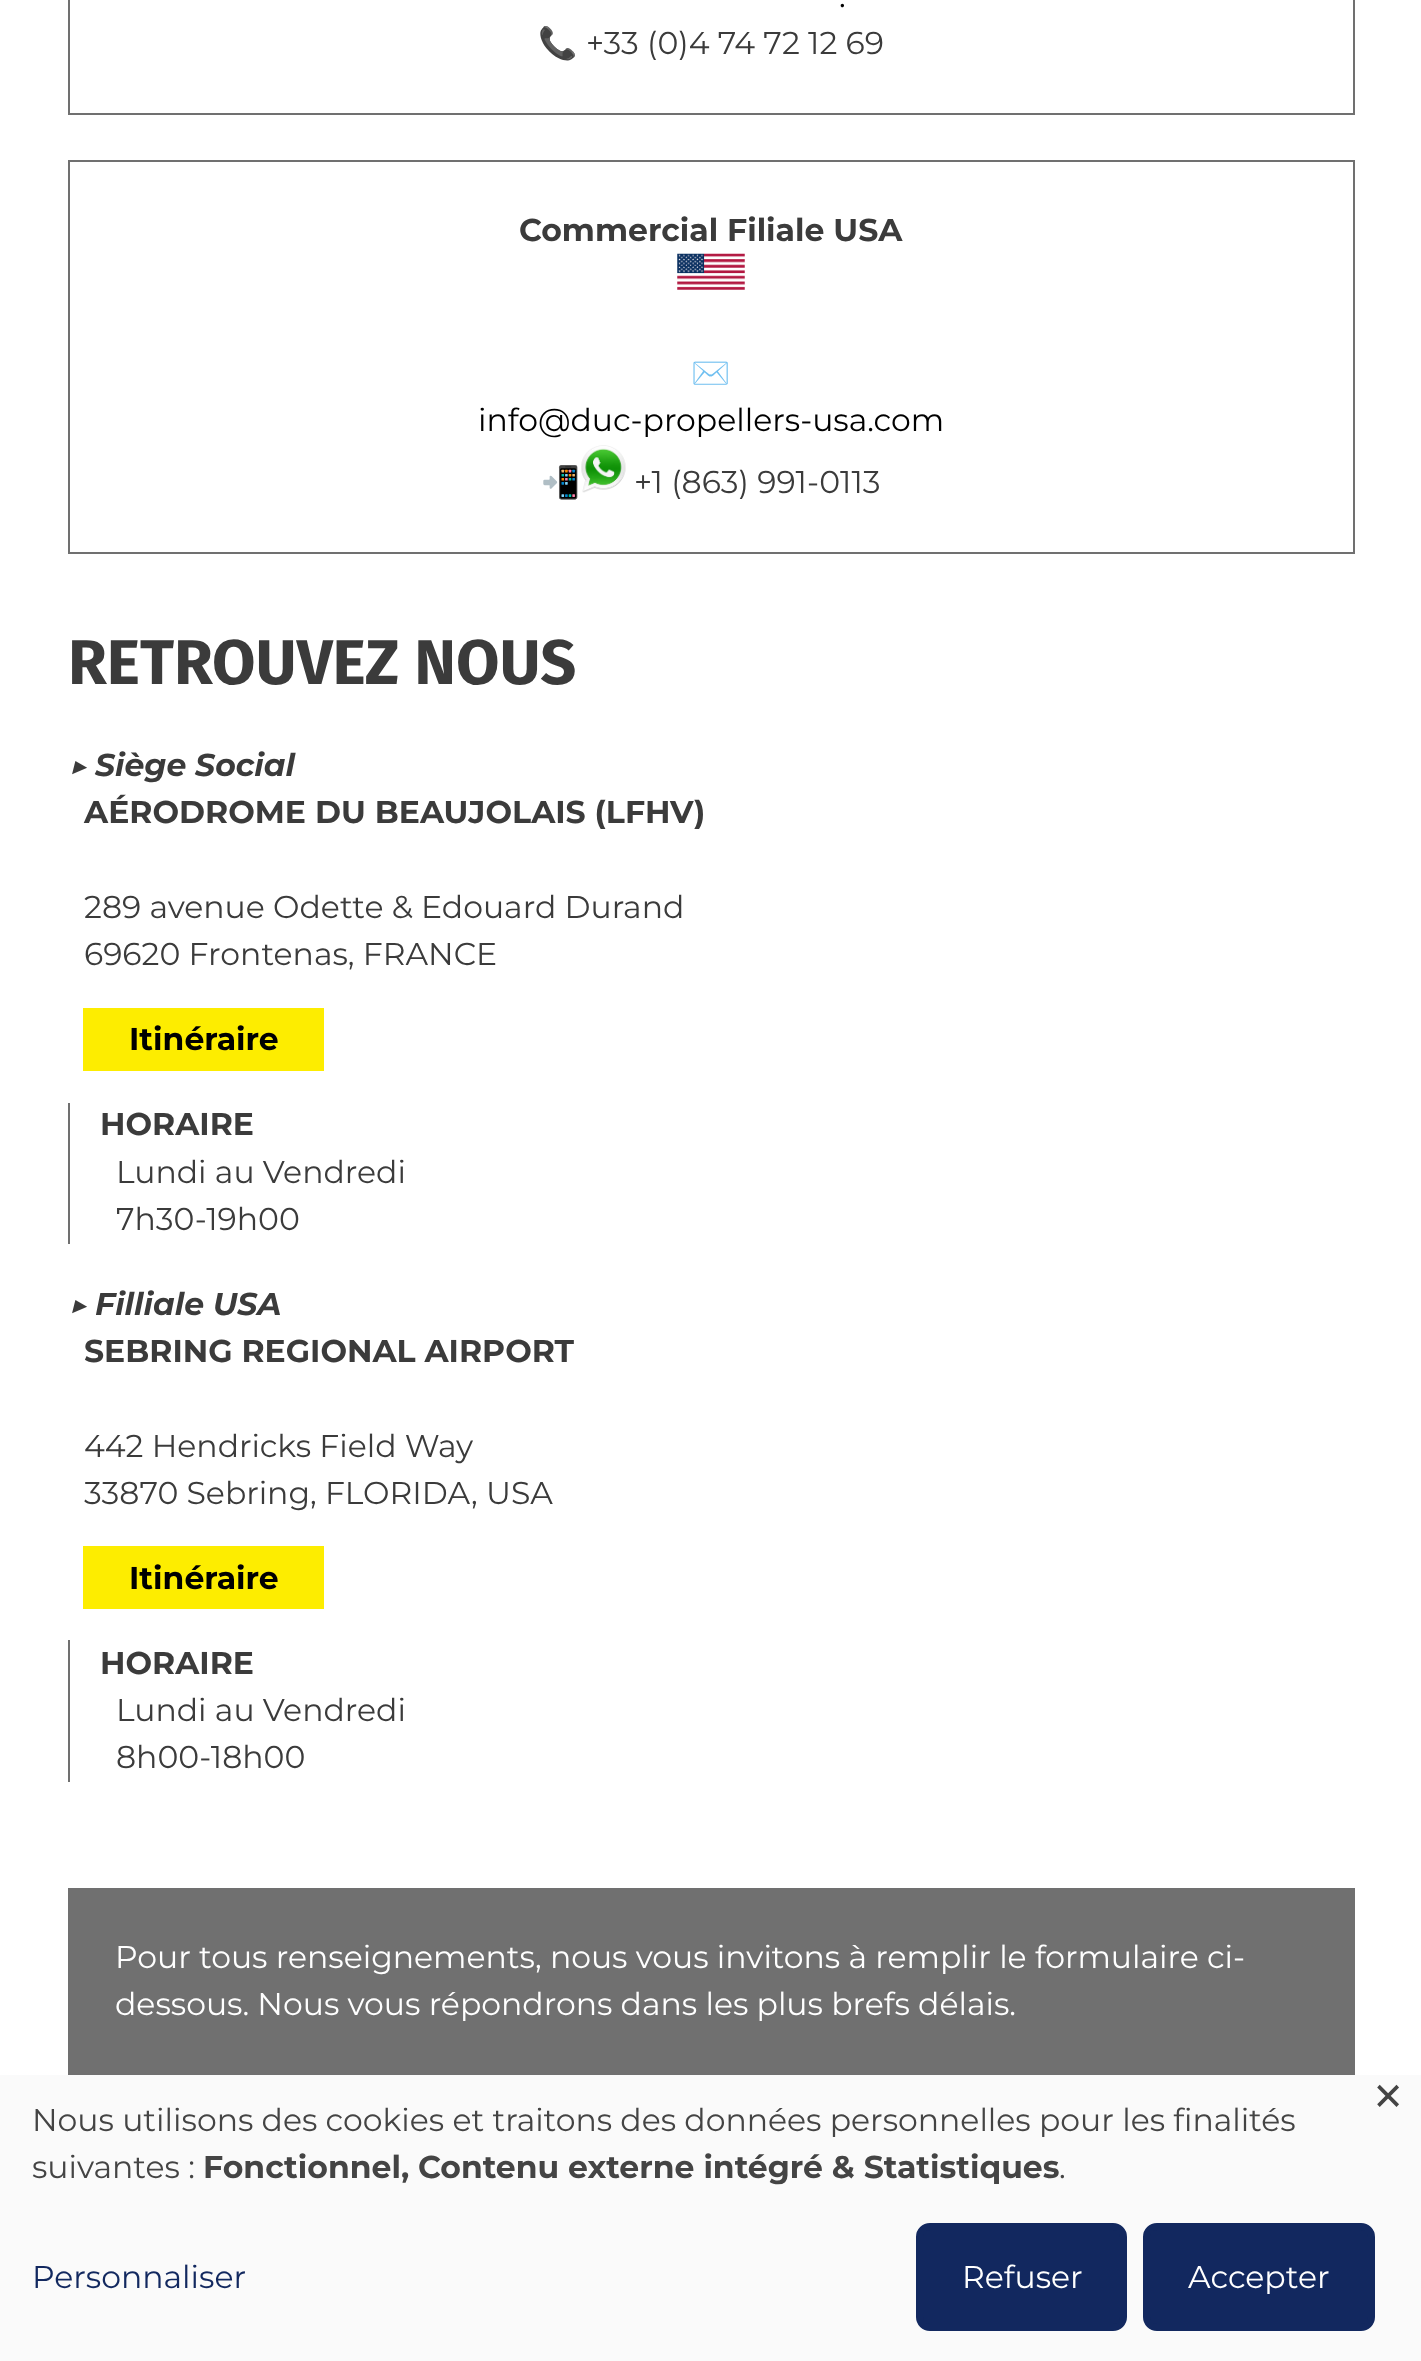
<!DOCTYPE html>
<meta charset="utf-8">
<style>body { margin: 0 } canvas { display: block }</style>
<canvas id="canvas" width="1421" height="2361"></canvas>
<script type="module">
  const canvas = document.getElementById("canvas");
  const ctx = canvas.getContext("2d");
  ctx.miterLimit = 4;
  ctx.fontKerning = "normal";
  async function loadImage(src) {
    const img = new Image();
    img.src = src;
    await img.decode();
    return img;
  }

  ctx.fillStyle = "#ffffff";
  ctx.fillRect(0, 0, 1421, 2361);
  ctx.strokeStyle = "#707070";
  ctx.lineWidth = 2;
  ctx.strokeRect(69, -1, 1285, 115);
  ctx.font = "31.5px Montserrat";
  ctx.fillStyle = "#000000";
  ctx.fillText(".", 839, 7);
  ctx.font = "31.5px Noto Color Emoji";
  ctx.fillStyle = "#3b3b3b";
  ctx.fillText("📞", 538, 54);
  ctx.font = "31.5px Montserrat";
  ctx.fillText("+33 (0)4 74 72 12 69", 586, 54);
  ctx.strokeRect(69, 161, 1285, 392);
  ctx.font = "bold 31.5px Montserrat";
  ctx.fillText("Commercial Filiale USA", 519, 241);
  ctx.drawImage(await loadImage("img1.png"), 677, 253, 68, 37);
  ctx.font = "31.5px Noto Color Emoji";
  ctx.fillText("✉️", 691, 384);
  ctx.font = "31.5px Montserrat";
  ctx.fillStyle = "#000000";
  ctx.fillText("info@duc-propellers-usa.com", 478, 431);
  ctx.font = "31.5px Noto Color Emoji";
  ctx.fillStyle = "#3b3b3b";
  ctx.fillText("📲", 541, 493);
  ctx.drawImage(await loadImage("img2.png"), 581, 445, 45, 48);
  ctx.font = "31.5px Montserrat";
  ctx.fillText("+1 (863) 991-0113", 634, 493);
  ctx.font = "bold 63px Fira Sans";
  ctx.fillText("RETROUVEZ NOUS", 68, 684);
  ctx.font = "italic bold 31.5px Montserrat";
  ctx.fillText("▶", 68, 776);
  ctx.font = "italic bold 31.5px 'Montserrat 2'";
  ctx.fillText("Siège Social", 95, 776);
  ctx.font = "bold 31.5px Montserrat";
  ctx.fillText("AÉRODROME DU BEAUJOLAIS (LFHV)", 84, 823);
  ctx.font = "31.5px Montserrat";
  ctx.fillText("289 avenue Odette & Edouard Durand", 84, 918);
  ctx.fillText("69620 Frontenas, FRANCE", 84, 965);
  ctx.fillStyle = "#fded00";
  ctx.fillRect(83, 1008, 241, 63);
  ctx.font = "bold 31.5px Montserrat";
  ctx.fillStyle = "#000000";
  ctx.fillText("Itinéraire", 129, 1050);
  ctx.fillStyle = "#707070";
  ctx.fillRect(68, 1103, 2, 141);
  ctx.fillStyle = "#3b3b3b";
  ctx.fillText("HORAIRE", 100, 1135);
  ctx.font = "31.5px Montserrat";
  ctx.fillText("Lundi au Vendredi", 116, 1183);
  ctx.fillText("7h30-19h00", 116, 1230);
  ctx.font = "italic bold 31.5px Montserrat";
  ctx.fillText("▶", 68, 1315);
  ctx.font = "italic bold 31.5px 'Montserrat 2'";
  ctx.fillText("Filliale USA", 95, 1315);
  ctx.font = "bold 31.5px Montserrat";
  ctx.fillText("SEBRING REGIONAL AIRPORT", 84, 1362);
  ctx.font = "31.5px Montserrat";
  ctx.fillText("442 Hendricks Field Way", 84, 1457);
  ctx.fillText("33870 Sebring, FLORIDA, USA", 84, 1504);
  ctx.fillStyle = "#fded00";
  ctx.fillRect(83, 1546, 241, 63);
  ctx.font = "bold 31.5px Montserrat";
  ctx.fillStyle = "#000000";
  ctx.fillText("Itinéraire", 129, 1589);
  ctx.fillStyle = "#707070";
  ctx.fillRect(68, 1640, 2, 142);
  ctx.fillStyle = "#3b3b3b";
  ctx.fillText("HORAIRE", 100, 1674);
  ctx.font = "31.5px Montserrat";
  ctx.fillText("Lundi au Vendredi", 116, 1721);
  ctx.fillText("8h00-18h00", 116, 1768);
  ctx.fillStyle = "#707070";
  ctx.fillRect(68, 1888, 1287, 187);
  ctx.fillStyle = "#ffffff";
  ctx.fillText("Pour tous renseignements, nous vous invitons à remplir le formulaire ci-", 115, 1968);
  ctx.fillText("dessous. Nous vous répondrons dans les plus brefs délais.", 115, 2015);
  ctx.fillStyle = "#fafafa";
  ctx.fillRect(0, 2075, 1421, 286);
  ctx.font = "63px Montserrat";
  ctx.fillStyle = "#444444";
  ctx.fillText("×", 1370, 2118);
  ctx.font = "31.5px Montserrat";
  ctx.fillText("Nous utilisons des cookies et traitons des données personnelles pour les finalités", 32, 2131);
  ctx.fillText("suivantes :", 32, 2178);
  ctx.font = "bold 31.5px Montserrat";
  ctx.fillText("Fonctionnel, Contenu externe intégré & Statistiques", 203, 2178);
  ctx.font = "31.5px Montserrat";
  ctx.fillText(".", 1059, 2178);
  ctx.fillStyle = "#12285f";
  ctx.fillText("Personnaliser", 32, 2288);
  ctx.beginPath();
  ctx.roundRect(919.5, 2226.5, 204, 101, 10.5);
  ctx.fill();
  ctx.strokeStyle = "#12285f";
  ctx.lineWidth = 7;
  ctx.stroke();
  ctx.fillStyle = "#ffffff";
  ctx.fillText("Refuser", 962, 2288);
  ctx.fillStyle = "#12285f";
  ctx.beginPath();
  ctx.roundRect(1146.5, 2226.5, 225, 101, 10.5);
  ctx.fill();
  ctx.stroke();
  ctx.fillStyle = "#ffffff";
  ctx.fillText("Accepter", 1188, 2288);
</script>
